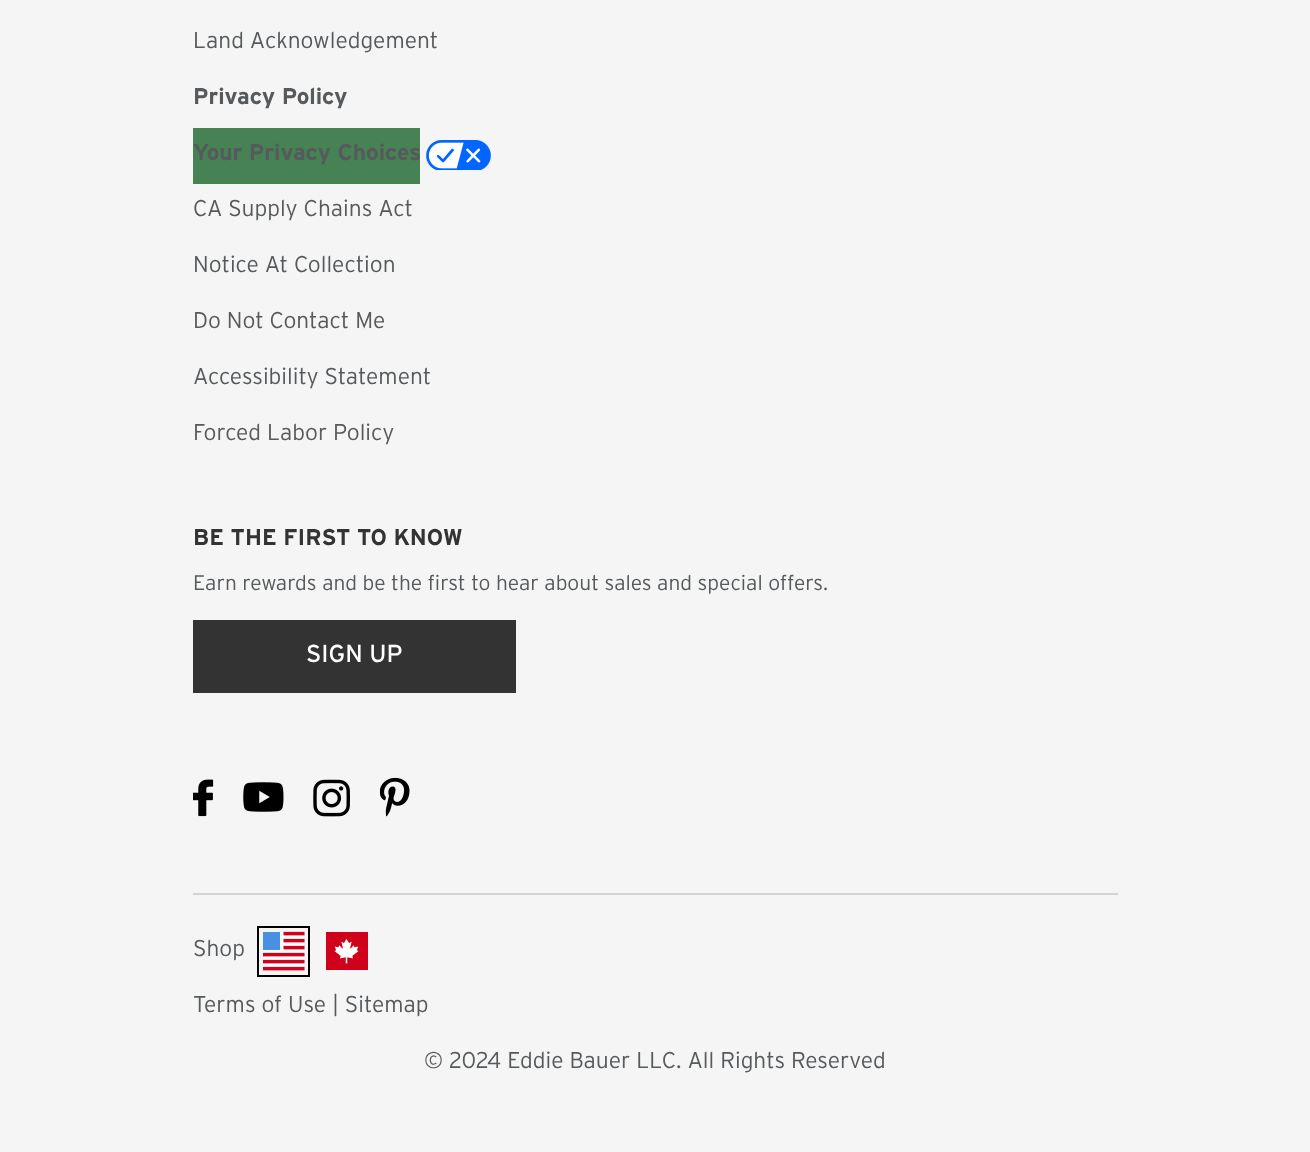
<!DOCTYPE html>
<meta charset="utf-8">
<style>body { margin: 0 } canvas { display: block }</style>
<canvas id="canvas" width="1310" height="1152"></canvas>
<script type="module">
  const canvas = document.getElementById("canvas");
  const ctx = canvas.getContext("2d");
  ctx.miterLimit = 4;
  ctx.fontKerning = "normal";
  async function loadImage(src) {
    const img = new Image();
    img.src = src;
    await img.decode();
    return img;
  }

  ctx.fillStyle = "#f5f5f5";
  ctx.fillRect(0, 0, 1310, 1152);
  ctx.fillStyle = "#d0d4d7";
  ctx.fillRect(193, 893, 925, 2);
  ctx.font = "300 22.75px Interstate";
  ctx.fillStyle = "#565a5c";
  ctx.fillText("Land Acknowledgement", 193, 48);
  ctx.font = "bold 22.75px Interstate";
  ctx.fillText("Privacy Policy", 193, 104);
  ctx.fillStyle = "#468254";
  ctx.fillRect(193, 128, 227, 56);
  ctx.fillStyle = "#565a5c";
  ctx.fillText("Your Privacy Choices", 193, 160);
  ctx.drawImage(await loadImage("img1.png"), 426, 140, 65, 30);
  ctx.font = "300 22.75px Interstate";
  ctx.fillText("CA Supply Chains Act", 193, 216);
  ctx.fillText("Notice At Collection", 193, 272);
  ctx.fillText("Do Not Contact Me", 193, 328);
  ctx.fillText("Accessibility Statement", 193, 384);
  ctx.fillText("Forced Labor Policy", 193, 440);
  ctx.font = "bold 22.75px Interstate";
  ctx.fillStyle = "#333333";
  ctx.fillText("BE THE FIRST TO KNOW", 193, 545);
  ctx.font = "300 21px Interstate";
  ctx.fillStyle = "#565a5c";
  ctx.fillText("Earn rewards and be the first to hear about sales and special offers.", 193, 590);
  ctx.fillStyle = "#333333";
  ctx.fillRect(193, 620, 323, 73);
  ctx.font = "24.5px Interstate";
  ctx.fillStyle = "#ffffff";
  ctx.fillText("SIGN UP", 306, 662);
  ctx.drawImage(await loadImage("img2.png"), 193, 779, 21, 38);
  ctx.drawImage(await loadImage("img3.png"), 243, 782, 41, 30);
  ctx.drawImage(await loadImage("img4.png"), 313, 779, 37, 38);
  ctx.drawImage(await loadImage("img5.png"), 380, 777, 30, 40);
  ctx.font = "300 22.75px Interstate";
  ctx.fillStyle = "#565a5c";
  ctx.fillText("Shop", 193, 956);
  ctx.strokeStyle = "#000000";
  ctx.lineWidth = 2;
  ctx.strokeRect(258, 927, 51, 49);
  ctx.drawImage(await loadImage("img6.png"), 263, 931, 42, 40);
  ctx.drawImage(await loadImage("img7.png"), 326, 932, 42, 38);
  ctx.fillText("Terms of Use | Sitemap", 193, 1012);
  ctx.fillText("© 2024 Eddie Bauer LLC. All Rights Reserved", 424, 1068);
</script>
